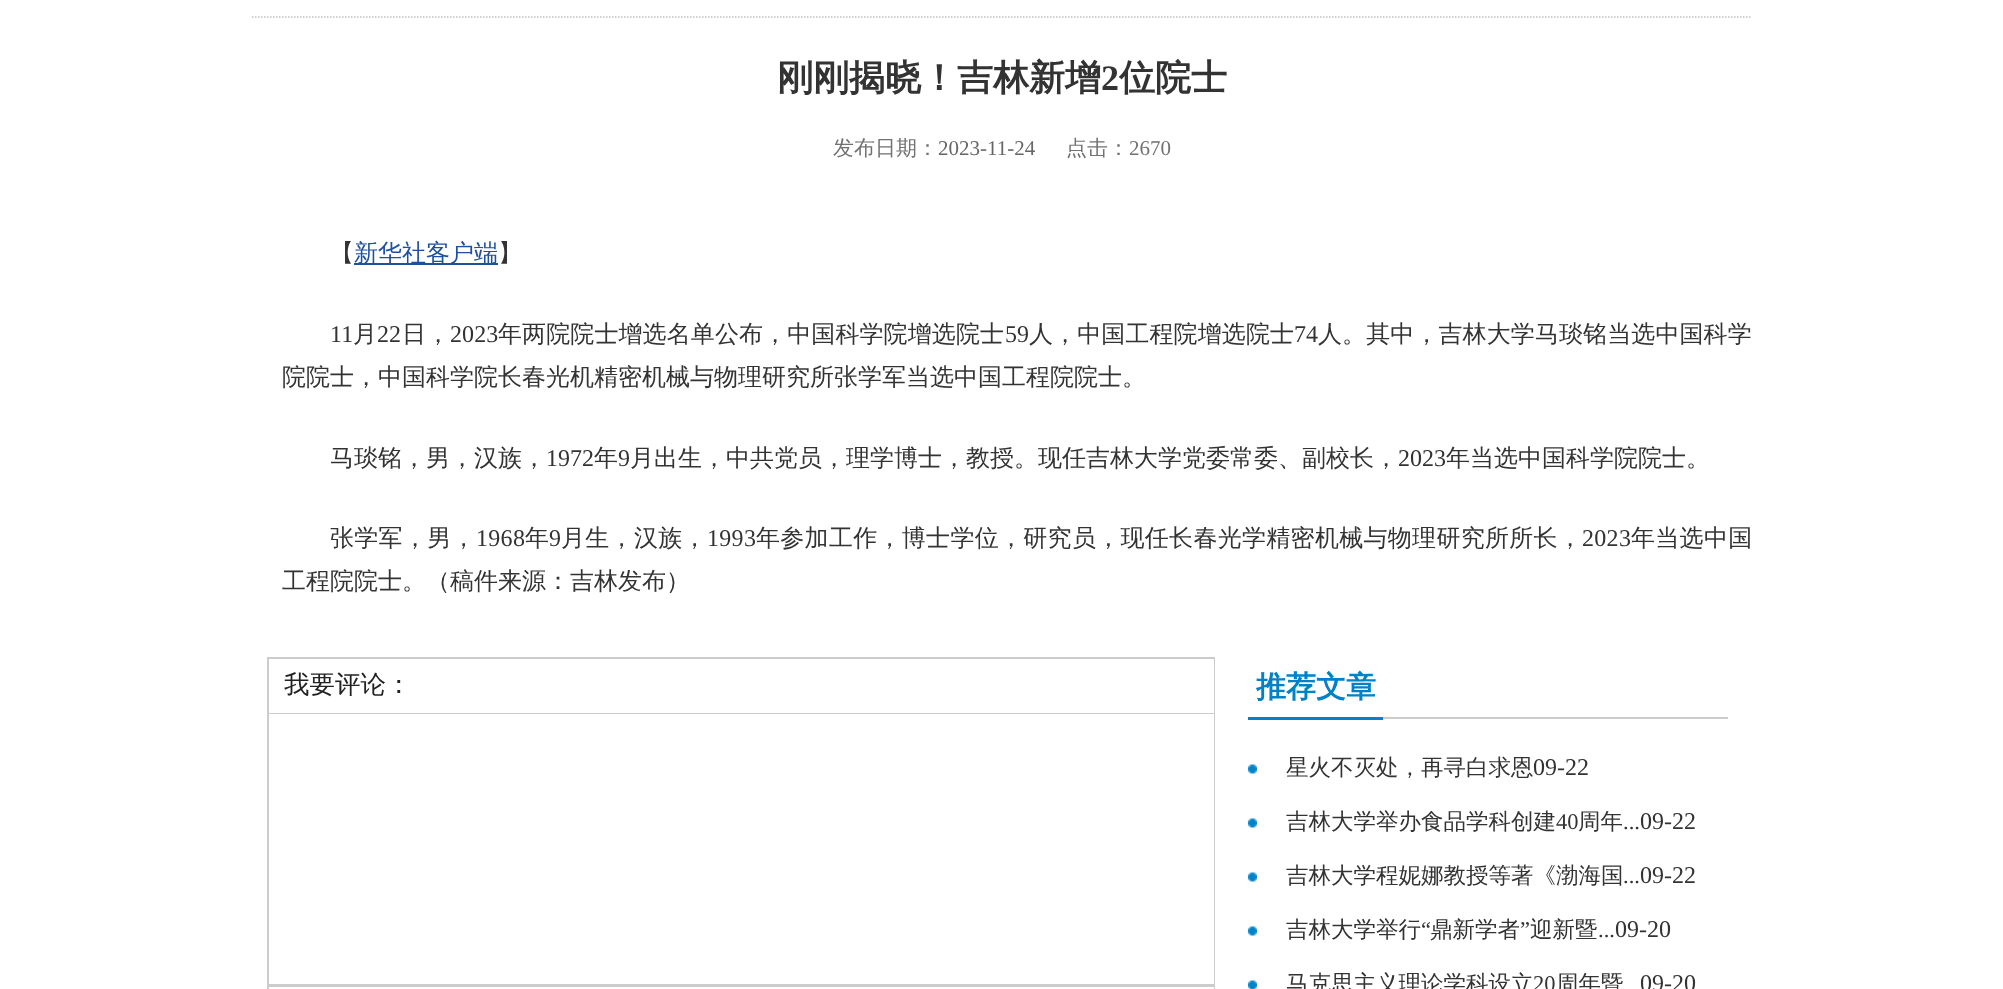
<!DOCTYPE html>
<meta charset="utf-8">
<style>body { margin: 0 } canvas { display: block }</style>
<canvas id="canvas" width="2003" height="989"></canvas>
<script type="module">
  const canvas = document.getElementById("canvas");
  const ctx = canvas.getContext("2d");
  ctx.miterLimit = 4;
  ctx.fontKerning = "normal";
  async function loadImage(src) {
    const img = new Image();
    img.src = src;
    await img.decode();
    return img;
  }

  ctx.fillStyle = "#ffffff";
  ctx.fillRect(0, 0, 2003, 989);
  ctx.beginPath();
  ctx.moveTo(252, 17);
  ctx.lineTo(1752, 17);
  ctx.strokeStyle = "#c1c1c1";
  ctx.lineWidth = 1.5;
  ctx.setLineDash([1.5, 1.5]);
  ctx.stroke();
  ctx.font = "bold 36px WenQuanYi Zen Hei";
  ctx.fillStyle = "#333333";
  ctx.fillText("刚刚揭晓！吉林新增", 777, 90);
  ctx.font = "bold 36px Liberation Serif";
  ctx.fillText("2", 1101, 90);
  ctx.font = "bold 36px WenQuanYi Zen Hei";
  ctx.fillText("位院士", 1119, 90);
  ctx.font = "500 21px WenQuanYi Zen Hei";
  ctx.fillStyle = "#727272";
  ctx.fillText("发布日期：", 833, 155);
  ctx.font = "21px Liberation Serif";
  ctx.fillStyle = "#666666";
  ctx.fillText("2023-11-24", 938, 155);
  ctx.font = "500 21px WenQuanYi Zen Hei";
  ctx.fillStyle = "#727272";
  ctx.fillText("点击：", 1066, 155);
  ctx.font = "21px Liberation Serif";
  ctx.fillText("2670", 1129, 155);
  ctx.font = "500 24px WenQuanYi Zen Hei";
  ctx.fillStyle = "#333333";
  ctx.fillText("【", 330, 261);
  ctx.fillStyle = "#1e50a2";
  ctx.fillRect(354, 263, 144, 2);
  ctx.fillText("新华社客户端", 354, 261);
  ctx.fillStyle = "#333333";
  ctx.fillText("】", 498, 261);
  ctx.letterSpacing = "0.1px";
  ctx.font = "24px Liberation Serif";
  ctx.fillText("11", 330, 342);
  ctx.font = "500 24px WenQuanYi Zen Hei";
  ctx.fillText("月", 353, 342);
  ctx.font = "24px Liberation Serif";
  ctx.fillText("22", 377, 342);
  ctx.font = "500 24px WenQuanYi Zen Hei";
  ctx.fillText("日，", 402, 342);
  ctx.font = "24px Liberation Serif";
  ctx.fillText("2023", 450, 342);
  ctx.font = "500 24px WenQuanYi Zen Hei";
  ctx.fillText("年两院院士增选名单公布，中国科学院增选院士", 498, 342);
  ctx.font = "24px Liberation Serif";
  ctx.fillText("59", 1005, 342);
  ctx.font = "500 24px WenQuanYi Zen Hei";
  ctx.fillText("人，中国工程院增选院士", 1029, 342);
  ctx.font = "24px Liberation Serif";
  ctx.fillText("74", 1294, 342);
  ctx.font = "500 24px WenQuanYi Zen Hei";
  ctx.fillText("人。其中，吉林大学马琰铭当选中国科学", 1318, 342);
  ctx.letterSpacing = "0px";
  ctx.fillText("院院士，中国科学院长春光机精密机械与物理研究所张学军当选中国工程院院士。", 282, 385);
  ctx.fillText("马琰铭，男，汉族，", 330, 466);
  ctx.font = "24px Liberation Serif";
  ctx.fillText("1972", 546, 466);
  ctx.font = "500 24px WenQuanYi Zen Hei";
  ctx.fillText("年", 594, 466);
  ctx.font = "24px Liberation Serif";
  ctx.fillText("9", 618, 466);
  ctx.font = "500 24px WenQuanYi Zen Hei";
  ctx.fillText("月出生，中共党员，理学博士，教授。现任吉林大学党委常委、副校长，", 630, 466);
  ctx.font = "24px Liberation Serif";
  ctx.fillText("2023", 1398, 466);
  ctx.font = "500 24px WenQuanYi Zen Hei";
  ctx.fillText("年当选中国科学院院士。", 1446, 466);
  ctx.letterSpacing = "0.3px";
  ctx.fillText("张学军，男，", 330, 546);
  ctx.font = "24px Liberation Serif";
  ctx.fillText("1968", 476, 546);
  ctx.font = "500 24px WenQuanYi Zen Hei";
  ctx.fillText("年", 525, 546);
  ctx.font = "24px Liberation Serif";
  ctx.fillText("9", 549, 546);
  ctx.font = "500 24px WenQuanYi Zen Hei";
  ctx.fillText("月生，汉族，", 561, 546);
  ctx.font = "24px Liberation Serif";
  ctx.fillText("1993", 707, 546);
  ctx.font = "500 24px WenQuanYi Zen Hei";
  ctx.fillText("年参加工作，博士学位，研究员，现任长春光学精密机械与物理研究所所长，", 756, 546);
  ctx.font = "24px Liberation Serif";
  ctx.fillText("2023", 1582, 546);
  ctx.font = "500 24px WenQuanYi Zen Hei";
  ctx.fillText("年当选中国", 1631, 546);
  ctx.letterSpacing = "0px";
  ctx.fillText("工程院院士。（稿件来源：吉林发布）", 282, 589);
  ctx.fillStyle = "#cccccc";
  ctx.fillRect(267, 657, 948, 332);
  ctx.fillStyle = "#ffffff";
  ctx.fillRect(269, 659, 945, 54);
  ctx.font = "500 25.5px WenQuanYi Zen Hei";
  ctx.fillStyle = "#222222";
  ctx.fillText("我要评论：", 284, 693);
  ctx.fillStyle = "#ffffff";
  ctx.fillRect(269, 714, 945, 270);
  ctx.fillRect(269, 987, 945, 2);
  ctx.fillStyle = "#cccccc";
  ctx.fillRect(1383, 717, 345, 2);
  ctx.fillStyle = "#0182c6";
  ctx.fillRect(1248, 717, 135, 3);
  ctx.font = "bold 30px WenQuanYi Zen Hei";
  ctx.fillText("推荐文章", 1256, 697);
  ctx.drawImage(await loadImage("img1.png"), 1248, 764, 9, 10);
  ctx.font = "500 22.5px WenQuanYi Zen Hei";
  ctx.fillStyle = "#333333";
  ctx.fillText("星火不灭处，再寻白求恩", 1286, 775);
  ctx.font = "24px Liberation Serif";
  ctx.fillText("09-22", 1533, 775);
  ctx.drawImage(await loadImage("img1.png"), 1248, 818, 9, 10);
  ctx.font = "500 22.5px WenQuanYi Zen Hei";
  ctx.fillText("吉林大学举办食品学科创建", 1286, 829);
  ctx.font = "22.5px Liberation Serif";
  ctx.fillText("40", 1556, 829);
  ctx.font = "500 22.5px WenQuanYi Zen Hei";
  ctx.fillText("周年", 1578, 829);
  ctx.font = "22.5px Liberation Serif";
  ctx.fillText("...", 1623, 829);
  ctx.font = "24px Liberation Serif";
  ctx.fillText("09-22", 1640, 829);
  ctx.drawImage(await loadImage("img1.png"), 1248, 872, 9, 10);
  ctx.font = "500 22.5px WenQuanYi Zen Hei";
  ctx.fillText("吉林大学程妮娜教授等著《渤海国", 1286, 883);
  ctx.font = "22.5px Liberation Serif";
  ctx.fillText("...", 1623, 883);
  ctx.font = "24px Liberation Serif";
  ctx.fillText("09-22", 1640, 883);
  ctx.font = "500 22.5px WenQuanYi Zen Hei";
  ctx.fillText("吉林大学举行", 1286, 937);
  ctx.font = "22.5px Liberation Serif";
  ctx.fillText("“", 1421, 937);
  ctx.font = "500 22.5px WenQuanYi Zen Hei";
  ctx.fillText("鼎新学者", 1430, 937);
  ctx.font = "22.5px Liberation Serif";
  ctx.fillText("”", 1520, 937);
  ctx.font = "500 22.5px WenQuanYi Zen Hei";
  ctx.fillText("迎新暨", 1530, 937);
  ctx.font = "24px Liberation Serif";
  ctx.fillText("09-20", 1615, 937);
  ctx.drawImage(await loadImage("img1.png"), 1248, 926, 9, 10);
  ctx.font = "22.5px Liberation Serif";
  ctx.fillText("...", 1598, 937);
  ctx.drawImage(await loadImage("img2.png"), 1248, 980, 9, 9);
  ctx.font = "500 22.5px WenQuanYi Zen Hei";
  ctx.fillText("马克思主义理论学科设立", 1286, 991);
  ctx.font = "22.5px Liberation Serif";
  ctx.fillText("20", 1533, 991);
  ctx.font = "500 22.5px WenQuanYi Zen Hei";
  ctx.fillText("周年暨", 1556, 991);
  ctx.font = "24px Liberation Serif";
  ctx.fillText("09-20", 1640, 991);
</script>
